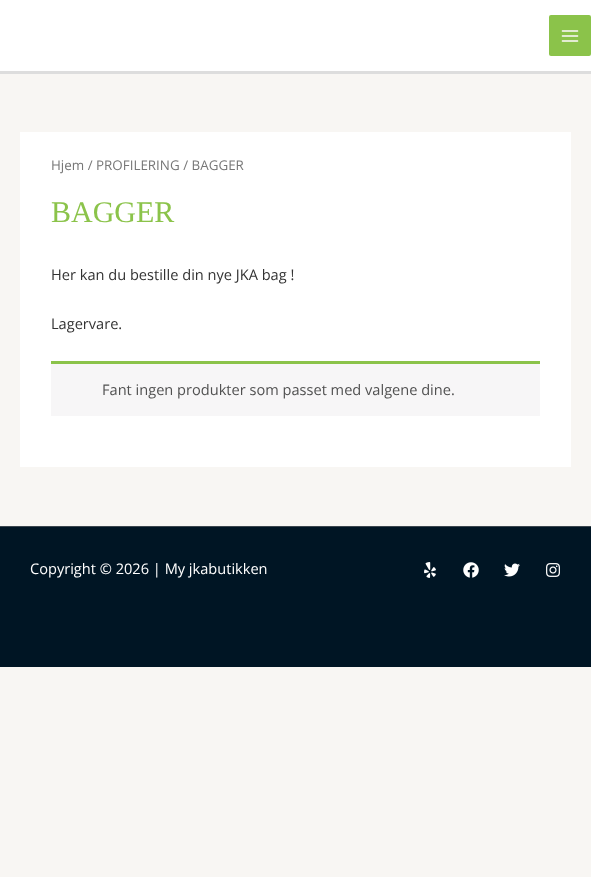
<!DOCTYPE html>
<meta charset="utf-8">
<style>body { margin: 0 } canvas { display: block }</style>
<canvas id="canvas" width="591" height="877"></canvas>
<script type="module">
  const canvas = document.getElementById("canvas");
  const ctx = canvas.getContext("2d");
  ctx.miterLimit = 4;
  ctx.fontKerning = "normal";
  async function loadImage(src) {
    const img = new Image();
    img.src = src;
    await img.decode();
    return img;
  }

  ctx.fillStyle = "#f8f6f3";
  ctx.fillRect(0, 0, 591, 877);
  ctx.fillStyle = "#ffffff";
  ctx.fillRect(0, 0, 591, 71);
  ctx.fillStyle = "#dddddd";
  ctx.fillRect(0, 71, 591, 3);
  ctx.fillStyle = "#8bc34a";
  ctx.beginPath();
  ctx.roundRect(549, 15, 42, 41, 2);
  ctx.fill();
  ctx.drawImage(await loadImage("img1.png"), 561, 30, 18, 12);
  ctx.fillStyle = "#ffffff";
  ctx.fillRect(20, 132, 551, 335);
  ctx.font = "13.4px Open Sans";
  ctx.fillStyle = "#777777";
  ctx.fillText("Hjem / PROFILERING / BAGGER", 51, 170);
  ctx.font = "30px Liberation Serif";
  ctx.fillStyle = "#8bc34a";
  ctx.fillText("BAGGER", 51, 222);
  ctx.font = "14.6px Open Sans";
  ctx.fillStyle = "#333333";
  ctx.fillText("Her kan du bestille din nye JKA bag !", 51, 280);
  ctx.fillText("Lagervare.", 51, 329);
  ctx.fillStyle = "#f7f6f7";
  ctx.fillRect(51, 364, 489, 52);
  ctx.fillStyle = "#8bc34a";
  ctx.fillRect(51, 361, 489, 3);
  ctx.fillStyle = "#515151";
  ctx.fillText("Fant ingen produkter som passet med valgene dine.", 102, 395);
  ctx.fillStyle = "#001524";
  ctx.fillRect(0, 527, 591, 140);
  ctx.fillStyle = "#3b464e";
  ctx.fillRect(0, 526, 591, 1);
  ctx.fillStyle = "#ffffff";
  ctx.fillText("Copyright © 2026 | My jkabutikken", 30, 574);
  ctx.drawImage(await loadImage("img2.png"), 424, 562, 12, 16);
  ctx.drawImage(await loadImage("img3.png"), 463, 562, 16, 16);
  ctx.drawImage(await loadImage("img4.png"), 504, 563, 16, 14);
  ctx.drawImage(await loadImage("img5.png"), 546, 563, 14, 14);
</script>
